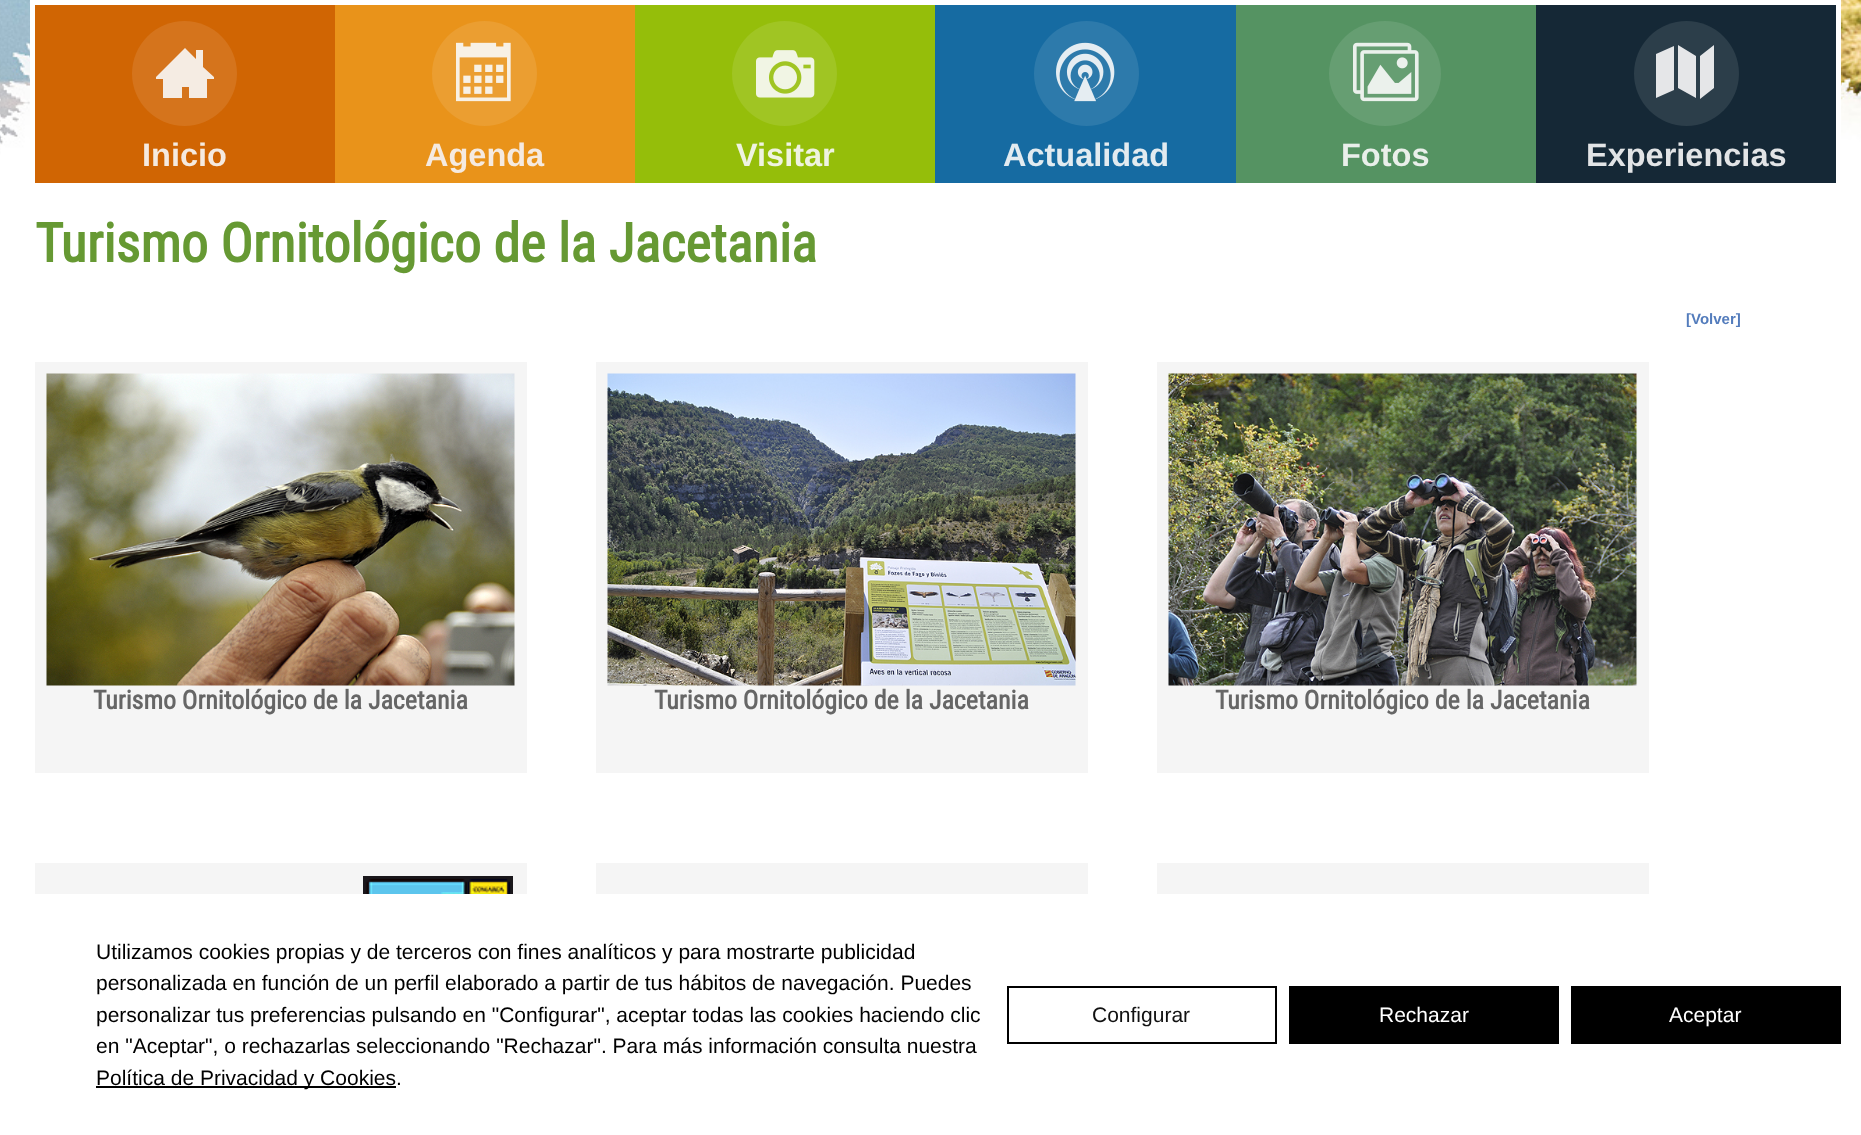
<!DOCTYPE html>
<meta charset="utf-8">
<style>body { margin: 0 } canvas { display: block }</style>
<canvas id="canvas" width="1861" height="1135"></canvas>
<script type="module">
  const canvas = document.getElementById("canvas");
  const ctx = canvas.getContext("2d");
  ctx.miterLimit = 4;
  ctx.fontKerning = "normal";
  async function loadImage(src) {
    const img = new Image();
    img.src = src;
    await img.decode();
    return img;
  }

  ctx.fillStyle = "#ffffff";
  ctx.fillRect(0, 0, 1861, 1135);
  ctx.drawImage(await loadImage("img1.png"), 0, 0, 1861, 185);
  ctx.fillRect(30, 0, 1811, 185);
  ctx.fillStyle = "#d06503";
  ctx.fillRect(35, 5, 300, 178);
  ctx.fillStyle = "#d5741c";
  ctx.beginPath();
  ctx.arc(184.5, 73.5, 52.5, 0, Math.PI * 2);
  ctx.fill();
  ctx.fillStyle = "#f5ece3";
  ctx.beginPath();
  ctx.moveTo(214, 77);
  ctx.lineTo(203, 67);
  ctx.lineTo(203, 50);
  ctx.lineTo(196, 50);
  ctx.lineTo(196, 59);
  ctx.lineTo(185, 48);
  ctx.lineTo(156, 77);
  ctx.lineTo(156, 79);
  ctx.lineTo(163, 79);
  ctx.lineTo(163, 98);
  ctx.lineTo(182, 98);
  ctx.lineTo(182, 87);
  ctx.lineTo(189, 87);
  ctx.lineTo(189, 98);
  ctx.lineTo(207, 98);
  ctx.lineTo(207, 79);
  ctx.lineTo(214, 79);
  ctx.closePath();
  ctx.fill();
  ctx.font = "bold 32.5px Liberation Sans";
  ctx.fillStyle = "#f5eae0";
  ctx.fillText("Inicio", 142, 166);
  ctx.fillStyle = "#e9931a";
  ctx.fillRect(335, 5, 300, 178);
  ctx.fillStyle = "#eb9e31";
  ctx.beginPath();
  ctx.arc(484.5, 73.5, 52.5, 0, Math.PI * 2);
  ctx.fill();
  ctx.drawImage(await loadImage("img2.png"), 456, 42, 55, 60);
  ctx.fillStyle = "#f5eae0";
  ctx.fillText("Agenda", 425, 166);
  ctx.fillStyle = "#95be0a";
  ctx.fillRect(635, 5, 300, 178);
  ctx.fillStyle = "#a0c523";
  ctx.beginPath();
  ctx.arc(784.5, 73.5, 52.5, 0, Math.PI * 2);
  ctx.fill();
  ctx.drawImage(await loadImage("img3.png"), 756, 50, 59, 48);
  ctx.fillStyle = "#eff3e1";
  ctx.fillText("Visitar", 736, 166);
  ctx.fillStyle = "#166ba2";
  ctx.fillRect(935, 5, 301, 178);
  ctx.fillStyle = "#2d7aab";
  ctx.beginPath();
  ctx.arc(1086.5, 73.5, 52.5, 0, Math.PI * 2);
  ctx.fill();
  ctx.drawImage(await loadImage("img4.png"), 1056, 42, 59, 60);
  ctx.fillStyle = "#e2ebf0";
  ctx.fillText("Actualidad", 1003, 166);
  ctx.fillStyle = "#559362";
  ctx.fillRect(1236, 5, 300, 178);
  ctx.fillStyle = "#669e72";
  ctx.beginPath();
  ctx.ellipse(1385, 73.5, 56, 52.5, 0, 0, Math.PI * 2);
  ctx.fill();
  ctx.drawImage(await loadImage("img5.png"), 1353, 42, 66, 60);
  ctx.fillStyle = "#e9efea";
  ctx.fillText("Fotos", 1341, 166);
  ctx.fillStyle = "#152836";
  ctx.fillRect(1536, 5, 300, 178);
  ctx.fillStyle = "#2c3e4a";
  ctx.beginPath();
  ctx.arc(1686.5, 73.5, 52.5, 0, Math.PI * 2);
  ctx.fill();
  ctx.fillStyle = "#e5e6e8";
  ctx.beginPath();
  ctx.moveTo(1656, 54);
  ctx.lineTo(1674, 46);
  ctx.lineTo(1674, 90);
  ctx.lineTo(1656, 98);
  ctx.closePath();
  ctx.moveTo(1678, 45);
  ctx.lineTo(1696, 56);
  ctx.lineTo(1696, 98);
  ctx.lineTo(1678, 88);
  ctx.closePath();
  ctx.moveTo(1700, 56);
  ctx.lineTo(1714, 45);
  ctx.lineTo(1714, 88);
  ctx.lineTo(1700, 99);
  ctx.closePath();
  ctx.fill();
  ctx.fillStyle = "#e2e4e6";
  ctx.fillText("Experiencias", 1586, 166);
  ctx.font = "bold 54px Roboto Condensed";
  ctx.fillStyle = "#669933";
  ctx.fillText("Turismo Ornitológico de la Jacetania", 35, 262);
  ctx.font = "bold 15px Liberation Sans";
  ctx.fillStyle = "#537cbc";
  ctx.fillText("[Volver]", 1686, 324);
  ctx.fillStyle = "#f5f5f5";
  ctx.fillRect(35, 362, 492, 411);
  ctx.drawImage(await loadImage("img6.png"), 46, 373, 469, 313);
  ctx.font = "bold 25.9px Roboto Condensed";
  ctx.fillStyle = "#666666";
  ctx.fillText("Turismo Ornitológico de la Jacetania", 93, 709);
  ctx.fillStyle = "#f5f5f5";
  ctx.fillRect(596, 362, 492, 411);
  ctx.drawImage(await loadImage("img7.png"), 607, 373, 469, 313);
  ctx.fillStyle = "#666666";
  ctx.fillText("Turismo Ornitológico de la Jacetania", 654, 709);
  ctx.fillStyle = "#f5f5f5";
  ctx.fillRect(1157, 362, 492, 411);
  ctx.drawImage(await loadImage("img8.png"), 1168, 373, 469, 313);
  ctx.fillStyle = "#666666";
  ctx.fillText("Turismo Ornitológico de la Jacetania", 1215, 709);
  ctx.fillStyle = "#f5f5f5";
  ctx.fillRect(35, 863, 492, 31);
  ctx.drawImage(await loadImage("img9.png"), 363, 876, 150, 18);
  ctx.fillRect(596, 863, 492, 31);
  ctx.fillRect(1157, 863, 492, 31);
  ctx.font = "21px Liberation Sans";
  ctx.fillStyle = "#000000";
  ctx.fillText("Utilizamos cookies propias y de terceros con fines analíticos y para mostrarte publicidad", 96, 959);
  ctx.fillText("personalizada en función de un perfil elaborado a partir de tus hábitos de navegación. Puedes", 96, 990);
  ctx.fillText("personalizar tus preferencias pulsando en \"Configurar\", aceptar todas las cookies haciendo clic", 96, 1022);
  ctx.fillText("en \"Aceptar\", o rechazarlas seleccionando \"Rechazar\". Para más información consulta nuestra", 96, 1053);
  ctx.fillRect(96, 1086, 300, 2);
  ctx.fillText("Política de Privacidad y Cookies.", 96, 1085);
  ctx.strokeStyle = "#000000";
  ctx.lineWidth = 2;
  ctx.strokeRect(1008, 987, 268, 56);
  ctx.fillStyle = "#111111";
  ctx.fillText("Configurar", 1092, 1022);
  ctx.fillStyle = "#000000";
  ctx.fillRect(1289, 986, 270, 58);
  ctx.fillStyle = "#ffffff";
  ctx.fillText("Rechazar", 1379, 1022);
  ctx.fillStyle = "#000000";
  ctx.fillRect(1571, 986, 270, 58);
  ctx.fillStyle = "#ffffff";
  ctx.fillText("Aceptar", 1669, 1022);
</script>
